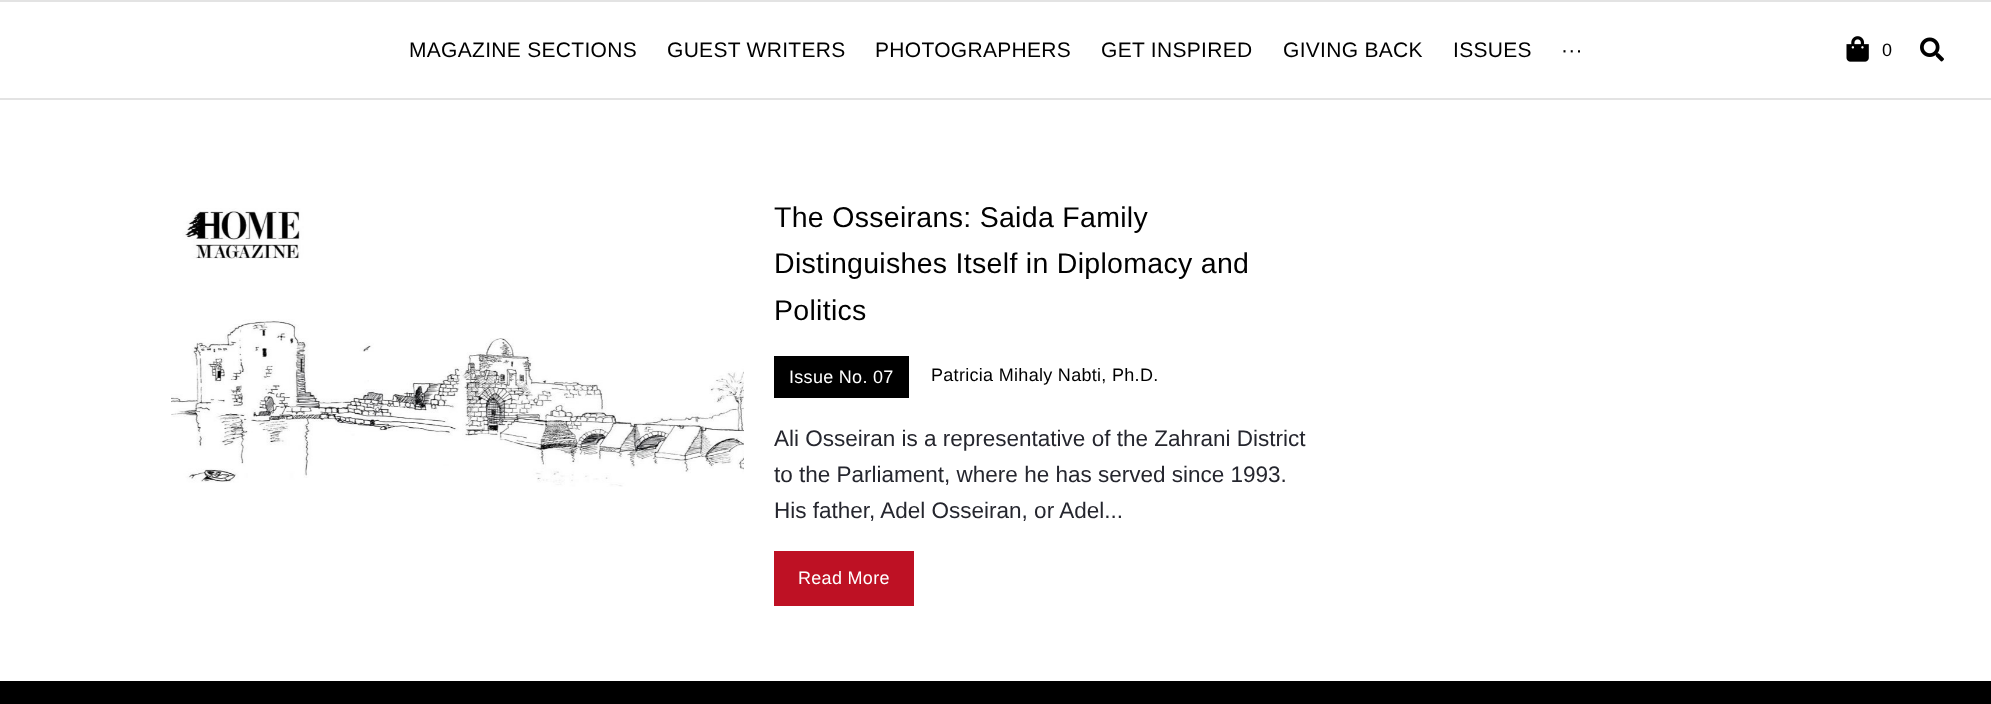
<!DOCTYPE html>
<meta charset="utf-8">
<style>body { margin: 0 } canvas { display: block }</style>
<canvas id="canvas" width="1991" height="704"></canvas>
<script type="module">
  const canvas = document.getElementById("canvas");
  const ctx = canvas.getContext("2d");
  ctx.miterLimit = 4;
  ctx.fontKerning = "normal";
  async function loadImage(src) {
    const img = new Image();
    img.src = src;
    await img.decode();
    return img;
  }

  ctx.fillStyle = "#ffffff";
  ctx.fillRect(0, 0, 1991, 704);
  ctx.fillStyle = "#e3e3e3";
  ctx.fillRect(0, 0, 1991, 2);
  ctx.fillRect(0, 98, 1991, 2);
  ctx.letterSpacing = "0.3px";
  ctx.font = "21px Liberation Sans";
  ctx.fillStyle = "#000000";
  ctx.fillText("MAGAZINE SECTIONS", 409, 57);
  ctx.fillText("GUEST WRITERS", 667, 57);
  ctx.fillText("PHOTOGRAPHERS", 875, 57);
  ctx.fillText("GET INSPIRED", 1101, 57);
  ctx.fillText("GIVING BACK", 1283, 57);
  ctx.fillText("ISSUES", 1453, 57);
  ctx.fillText("···", 1561, 57);
  ctx.drawImage(await loadImage("img1.png"), 1846, 36, 23, 26);
  ctx.font = "18px Liberation Sans";
  ctx.fillText("0", 1882, 56);
  ctx.drawImage(await loadImage("img2.png"), 1920, 37, 24, 25);
  ctx.drawImage(await loadImage("img3.png"), 171, 208, 573, 279);
  ctx.font = "28.5px Liberation Sans";
  ctx.fillText("The Osseirans: Saida Family", 774, 227);
  ctx.fillText("Distinguishes Itself in Diplomacy and", 774, 273);
  ctx.fillText("Politics", 774, 320);
  ctx.fillRect(774, 356, 135, 42);
  ctx.font = "18px Liberation Sans";
  ctx.fillStyle = "#ffffff";
  ctx.fillText("Issue No. 07", 789, 383);
  ctx.fillStyle = "#000000";
  ctx.fillText("Patricia Mihaly Nabti, Ph.D.", 931, 381);
  ctx.letterSpacing = "0px";
  ctx.font = "22.5px Liberation Sans";
  ctx.fillStyle = "#25262e";
  ctx.fillText("Ali Osseiran is a representative of the Zahrani District", 774, 446);
  ctx.fillText("to the Parliament, where he has served since 1993.", 774, 482);
  ctx.fillText("His father, Adel Osseiran, or Adel...", 774, 518);
  ctx.fillStyle = "#be1124";
  ctx.fillRect(774, 551, 140, 55);
  ctx.letterSpacing = "0.3px";
  ctx.font = "18px Liberation Sans";
  ctx.fillStyle = "#ffffff";
  ctx.fillText("Read More", 798, 584);
  ctx.fillStyle = "#000000";
  ctx.fillRect(0, 681, 1991, 23);
</script>
